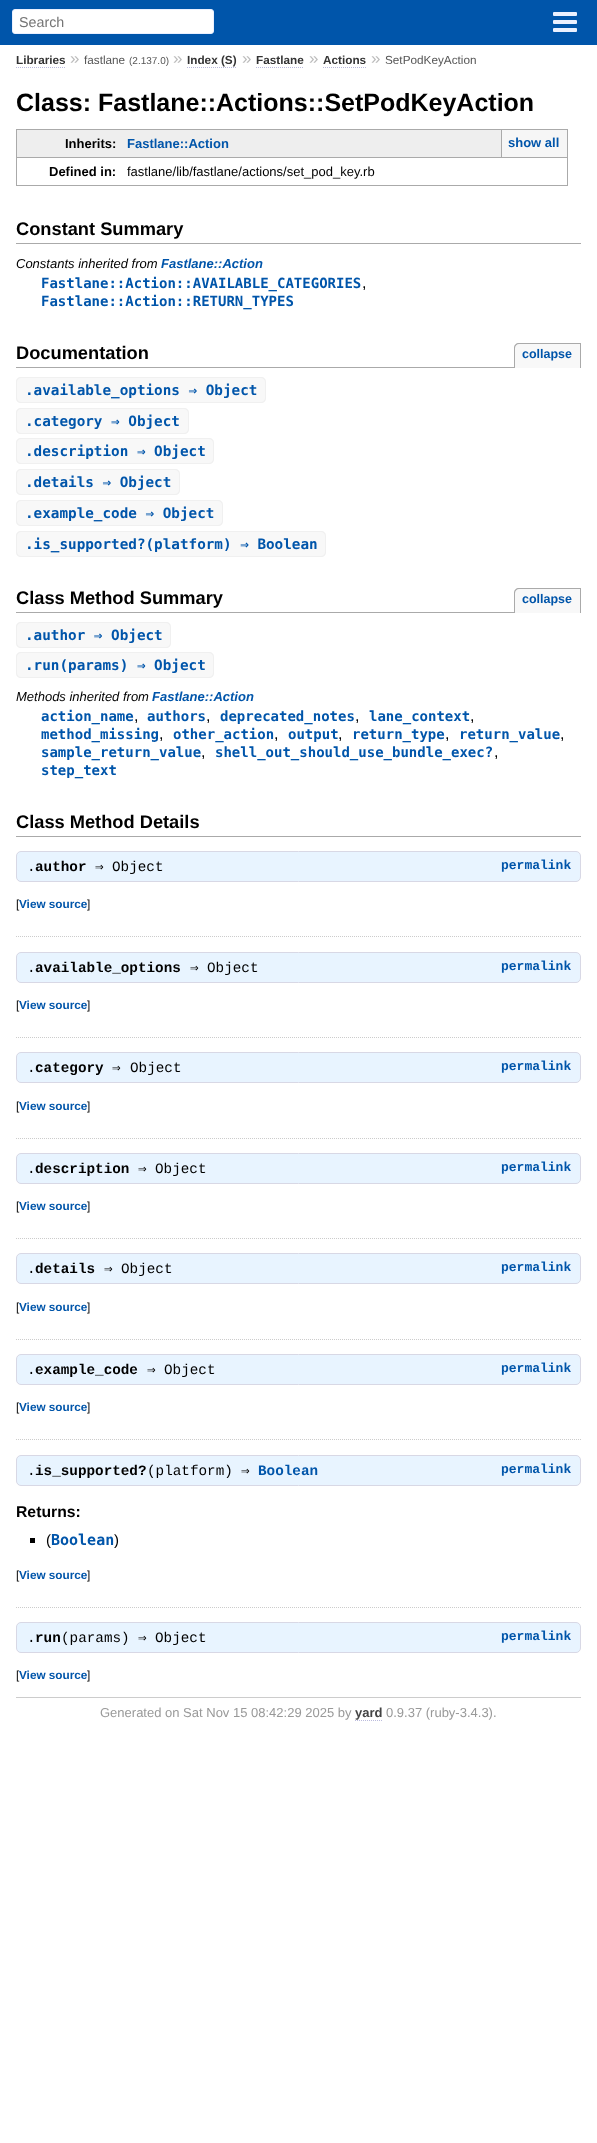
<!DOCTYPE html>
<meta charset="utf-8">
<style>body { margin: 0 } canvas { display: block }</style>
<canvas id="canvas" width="597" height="2143"></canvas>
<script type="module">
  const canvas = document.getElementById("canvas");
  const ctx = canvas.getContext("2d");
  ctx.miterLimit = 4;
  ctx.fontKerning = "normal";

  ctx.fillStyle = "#ffffff";
  ctx.fillRect(0, 0, 597, 2143);
  ctx.fillStyle = "#0055aa";
  ctx.fillRect(0, 0, 597, 45);
  ctx.fillStyle = "#ffffff";
  ctx.beginPath();
  ctx.roundRect(12.5, 9.5, 201, 24, 2.5);
  ctx.fill();
  ctx.strokeStyle = "#eaf0ff";
  ctx.stroke();
  ctx.font = "14.3px Liberation Sans";
  ctx.fillStyle = "#757575";
  ctx.fillText("Search", 19, 27);
  ctx.fillStyle = "#eaf0ff";
  ctx.beginPath();
  ctx.roundRect(553, 12, 24, 4, 1);
  ctx.fill();
  ctx.beginPath();
  ctx.roundRect(553, 20, 24, 4, 1);
  ctx.fill();
  ctx.beginPath();
  ctx.roundRect(553, 28, 24, 4, 1);
  ctx.fill();
  ctx.font = "bold 11.75px Liberation Sans";
  ctx.fillStyle = "#333333";
  ctx.fillText("Libraries", 16, 64);
  ctx.beginPath();
  ctx.moveTo(16, 67.5);
  ctx.lineTo(66, 67.5);
  ctx.strokeStyle = "#bbbbdd";
  ctx.setLineDash([1, 1]);
  ctx.stroke();
  ctx.font = "17px Liberation Sans";
  ctx.fillStyle = "#bbbbbb";
  ctx.fillText("»", 70, 64);
  ctx.font = "11.75px Liberation Sans";
  ctx.fillStyle = "#555555";
  ctx.fillText("fastlane", 84, 64);
  ctx.font = "10px Liberation Sans";
  ctx.fillText("(2.137.0)", 129, 64);
  ctx.font = "17px Liberation Sans";
  ctx.fillStyle = "#bbbbbb";
  ctx.fillText("»", 173, 64);
  ctx.font = "bold 11.75px Liberation Sans";
  ctx.fillStyle = "#333333";
  ctx.fillText("Index (S)", 187, 64);
  ctx.beginPath();
  ctx.moveTo(187, 67.5);
  ctx.lineTo(237, 67.5);
  ctx.stroke();
  ctx.font = "17px Liberation Sans";
  ctx.fillStyle = "#bbbbbb";
  ctx.fillText("»", 242, 64);
  ctx.font = "bold 11.75px Liberation Sans";
  ctx.fillStyle = "#333333";
  ctx.fillText("Fastlane", 256, 64);
  ctx.beginPath();
  ctx.moveTo(256, 67.5);
  ctx.lineTo(304, 67.5);
  ctx.stroke();
  ctx.font = "17px Liberation Sans";
  ctx.fillStyle = "#bbbbbb";
  ctx.fillText("»", 309, 64);
  ctx.font = "bold 11.75px Liberation Sans";
  ctx.fillStyle = "#333333";
  ctx.fillText("Actions", 323, 64);
  ctx.beginPath();
  ctx.moveTo(323, 67.5);
  ctx.lineTo(366, 67.5);
  ctx.stroke();
  ctx.font = "17px Liberation Sans";
  ctx.fillStyle = "#bbbbbb";
  ctx.fillText("»", 371, 64);
  ctx.font = "11.75px Liberation Sans";
  ctx.fillStyle = "#555555";
  ctx.fillText("SetPodKeyAction", 385, 64);
  ctx.font = "bold 25px Liberation Sans";
  ctx.fillStyle = "#000000";
  ctx.fillText("Class: Fastlane::Actions::SetPodKeyAction", 16, 111);
  ctx.fillStyle = "#eeeeee";
  ctx.fillRect(17, 130, 484, 27);
  ctx.fillStyle = "#aaaaaa";
  ctx.fillRect(16, 129, 552, 1);
  ctx.fillRect(16, 129, 1, 28);
  ctx.font = "bold 13px Liberation Sans";
  ctx.fillStyle = "#000000";
  ctx.fillText("Inherits:", 65, 148);
  ctx.fillStyle = "#aaaaaa";
  ctx.fillRect(16, 157, 552, 1);
  ctx.fillRect(567, 129, 1, 57);
  ctx.fillStyle = "#0055aa";
  ctx.fillText("Fastlane::Action", 127, 148);
  ctx.fillStyle = "#f6f6f6";
  ctx.fillRect(502, 130, 65, 27);
  ctx.fillStyle = "#aaaaaa";
  ctx.fillRect(501, 130, 1, 27);
  ctx.fillStyle = "#0055aa";
  ctx.fillText("show all", 508, 147);
  ctx.fillStyle = "#aaaaaa";
  ctx.fillRect(16, 185, 111, 1);
  ctx.fillRect(16, 157, 1, 29);
  ctx.fillStyle = "#000000";
  ctx.fillText("Defined in:", 49, 176);
  ctx.fillStyle = "#aaaaaa";
  ctx.fillRect(127, 185, 441, 1);
  ctx.font = "13px Liberation Sans";
  ctx.fillStyle = "#000000";
  ctx.fillText("fastlane/lib/fastlane/actions/set_pod_key.rb", 127, 176);
  ctx.fillStyle = "#aaaaaa";
  ctx.fillRect(16, 243, 565, 1);
  ctx.font = "bold 18.25px Liberation Sans";
  ctx.fillStyle = "#000000";
  ctx.fillText("Constant Summary", 16, 235);
  ctx.font = "italic 13px Liberation Sans";
  ctx.fillText("Constants inherited from", 16, 268);
  ctx.font = "italic bold 13px Liberation Sans";
  ctx.fillStyle = "#0055aa";
  ctx.fillText("Fastlane::Action", 161, 268);
  ctx.font = "bold 14px DejaVu Sans Mono";
  ctx.fillText("Fastlane::Action::AVAILABLE_CATEGORIES", 41, 288);
  ctx.font = "16px Liberation Sans";
  ctx.fillStyle = "#000000";
  ctx.fillText(",", 362, 288);
  ctx.font = "bold 14px DejaVu Sans Mono";
  ctx.fillStyle = "#0055aa";
  ctx.fillText("Fastlane::Action::RETURN_TYPES", 41, 306);
  ctx.fillStyle = "#aaaaaa";
  ctx.fillRect(16, 367, 498, 1);
  ctx.font = "bold 18.25px Liberation Sans";
  ctx.fillStyle = "#000000";
  ctx.fillText("Documentation", 16, 359);
  ctx.fillStyle = "#f8f8f8";
  ctx.beginPath();
  ctx.roundRect(514, 343, 67, 25, [5, 0, 0, 0]);
  ctx.fill();
  ctx.fillStyle = "#aaaaaa";
  ctx.beginPath();
  ctx.moveTo(519, 343);
  ctx.lineTo(581, 343);
  ctx.lineTo(581, 368);
  ctx.lineTo(514, 368);
  ctx.lineTo(514, 348);
  ctx.bezierCurveTo(514, 345, 516, 343, 519, 343);
  ctx.closePath();
  ctx.moveTo(519, 344);
  ctx.lineTo(580, 344);
  ctx.lineTo(580, 368);
  ctx.lineTo(515, 368);
  ctx.lineTo(515, 348);
  ctx.bezierCurveTo(515, 346, 517, 344, 519, 344);
  ctx.closePath();
  ctx.fill("evenodd");
  ctx.font = "bold 12.5px Liberation Sans";
  ctx.fillStyle = "#0055aa";
  ctx.fillText("collapse", 522, 358);
  ctx.fillStyle = "#f8f8f8";
  ctx.beginPath();
  ctx.roundRect(16, 377, 17, 26, [5, 0, 0, 5]);
  ctx.fill();
  ctx.fillStyle = "#f0f0f0";
  ctx.beginPath();
  ctx.moveTo(21, 377);
  ctx.lineTo(33, 377);
  ctx.lineTo(33, 403);
  ctx.lineTo(21, 403);
  ctx.bezierCurveTo(18, 403, 16, 401, 16, 398);
  ctx.lineTo(16, 382);
  ctx.bezierCurveTo(16, 379, 18, 377, 21, 377);
  ctx.closePath();
  ctx.moveTo(21, 378);
  ctx.lineTo(33, 378);
  ctx.lineTo(33, 402);
  ctx.lineTo(21, 402);
  ctx.bezierCurveTo(19, 402, 17, 400, 17, 398);
  ctx.lineTo(17, 382);
  ctx.bezierCurveTo(17, 380, 19, 378, 21, 378);
  ctx.closePath();
  ctx.fill("evenodd");
  ctx.fillStyle = "#f8f8f8";
  ctx.fillRect(33, 378, 147, 24);
  ctx.beginPath();
  ctx.roundRect(180, 377, 86, 26, [0, 5, 5, 0]);
  ctx.fill();
  ctx.fillStyle = "#f0f0f0";
  ctx.beginPath();
  ctx.moveTo(180, 377);
  ctx.lineTo(261, 377);
  ctx.bezierCurveTo(264, 377, 266, 379, 266, 382);
  ctx.lineTo(266, 398);
  ctx.bezierCurveTo(266, 401, 264, 403, 261, 403);
  ctx.lineTo(180, 403);
  ctx.closePath();
  ctx.moveTo(180, 378);
  ctx.lineTo(261, 378);
  ctx.bezierCurveTo(263, 378, 265, 380, 265, 382);
  ctx.lineTo(265, 398);
  ctx.bezierCurveTo(265, 400, 263, 402, 261, 402);
  ctx.lineTo(180, 402);
  ctx.closePath();
  ctx.fill("evenodd");
  ctx.font = "bold 14.3px DejaVu Sans Mono";
  ctx.fillStyle = "#0055aa";
  ctx.fillText(".available_options ⇒ Object", 25, 395);
  ctx.fillStyle = "#f0f0f0";
  ctx.fillRect(33, 377, 147, 1);
  ctx.fillRect(33, 402, 147, 1);
  ctx.fillStyle = "#f8f8f8";
  ctx.beginPath();
  ctx.roundRect(16, 408, 17, 26, [5, 0, 0, 5]);
  ctx.fill();
  ctx.fillStyle = "#f0f0f0";
  ctx.beginPath();
  ctx.moveTo(21, 408);
  ctx.lineTo(33, 408);
  ctx.lineTo(33, 434);
  ctx.lineTo(21, 434);
  ctx.bezierCurveTo(18, 434, 16, 432, 16, 429);
  ctx.lineTo(16, 413);
  ctx.bezierCurveTo(16, 410, 18, 408, 21, 408);
  ctx.closePath();
  ctx.moveTo(21, 409);
  ctx.lineTo(33, 409);
  ctx.lineTo(33, 433);
  ctx.lineTo(21, 433);
  ctx.bezierCurveTo(19, 433, 17, 431, 17, 429);
  ctx.lineTo(17, 413);
  ctx.bezierCurveTo(17, 411, 19, 409, 21, 409);
  ctx.closePath();
  ctx.fill("evenodd");
  ctx.fillStyle = "#f8f8f8";
  ctx.fillRect(33, 409, 69, 24);
  ctx.beginPath();
  ctx.roundRect(102, 408, 87, 26, [0, 5, 5, 0]);
  ctx.fill();
  ctx.fillStyle = "#f0f0f0";
  ctx.beginPath();
  ctx.moveTo(102, 408);
  ctx.lineTo(184, 408);
  ctx.bezierCurveTo(187, 408, 189, 410, 189, 413);
  ctx.lineTo(189, 429);
  ctx.bezierCurveTo(189, 432, 187, 434, 184, 434);
  ctx.lineTo(102, 434);
  ctx.closePath();
  ctx.moveTo(102, 409);
  ctx.lineTo(184, 409);
  ctx.bezierCurveTo(186, 409, 188, 411, 188, 413);
  ctx.lineTo(188, 429);
  ctx.bezierCurveTo(188, 431, 186, 433, 184, 433);
  ctx.lineTo(102, 433);
  ctx.closePath();
  ctx.fill("evenodd");
  ctx.fillStyle = "#0055aa";
  ctx.fillText(".category ⇒ Object", 25, 426);
  ctx.fillStyle = "#f0f0f0";
  ctx.fillRect(33, 408, 69, 1);
  ctx.fillRect(33, 433, 69, 1);
  ctx.fillStyle = "#f8f8f8";
  ctx.beginPath();
  ctx.roundRect(16, 438, 17, 26, [5, 0, 0, 5]);
  ctx.fill();
  ctx.fillStyle = "#f0f0f0";
  ctx.beginPath();
  ctx.moveTo(21, 438);
  ctx.lineTo(33, 438);
  ctx.lineTo(33, 464);
  ctx.lineTo(21, 464);
  ctx.bezierCurveTo(18, 464, 16, 462, 16, 459);
  ctx.lineTo(16, 443);
  ctx.bezierCurveTo(16, 440, 18, 438, 21, 438);
  ctx.closePath();
  ctx.moveTo(21, 439);
  ctx.lineTo(33, 439);
  ctx.lineTo(33, 463);
  ctx.lineTo(21, 463);
  ctx.bezierCurveTo(19, 463, 17, 461, 17, 459);
  ctx.lineTo(17, 443);
  ctx.bezierCurveTo(17, 441, 19, 439, 21, 439);
  ctx.closePath();
  ctx.fill("evenodd");
  ctx.fillStyle = "#f8f8f8";
  ctx.fillRect(33, 439, 95, 24);
  ctx.beginPath();
  ctx.roundRect(128, 438, 86, 26, [0, 5, 5, 0]);
  ctx.fill();
  ctx.fillStyle = "#f0f0f0";
  ctx.beginPath();
  ctx.moveTo(128, 438);
  ctx.lineTo(209, 438);
  ctx.bezierCurveTo(212, 438, 214, 440, 214, 443);
  ctx.lineTo(214, 459);
  ctx.bezierCurveTo(214, 462, 212, 464, 209, 464);
  ctx.lineTo(128, 464);
  ctx.closePath();
  ctx.moveTo(128, 439);
  ctx.lineTo(209, 439);
  ctx.bezierCurveTo(211, 439, 213, 441, 213, 443);
  ctx.lineTo(213, 459);
  ctx.bezierCurveTo(213, 461, 211, 463, 209, 463);
  ctx.lineTo(128, 463);
  ctx.closePath();
  ctx.fill("evenodd");
  ctx.fillStyle = "#0055aa";
  ctx.fillText(".description ⇒ Object", 25, 456);
  ctx.fillStyle = "#f0f0f0";
  ctx.fillRect(33, 438, 95, 1);
  ctx.fillRect(33, 463, 95, 1);
  ctx.fillStyle = "#f8f8f8";
  ctx.beginPath();
  ctx.roundRect(16, 469, 17, 26, [5, 0, 0, 5]);
  ctx.fill();
  ctx.fillStyle = "#f0f0f0";
  ctx.beginPath();
  ctx.moveTo(21, 469);
  ctx.lineTo(33, 469);
  ctx.lineTo(33, 495);
  ctx.lineTo(21, 495);
  ctx.bezierCurveTo(18, 495, 16, 493, 16, 490);
  ctx.lineTo(16, 474);
  ctx.bezierCurveTo(16, 471, 18, 469, 21, 469);
  ctx.closePath();
  ctx.moveTo(21, 470);
  ctx.lineTo(33, 470);
  ctx.lineTo(33, 494);
  ctx.lineTo(21, 494);
  ctx.bezierCurveTo(19, 494, 17, 492, 17, 490);
  ctx.lineTo(17, 474);
  ctx.bezierCurveTo(17, 472, 19, 470, 21, 470);
  ctx.closePath();
  ctx.fill("evenodd");
  ctx.fillStyle = "#f8f8f8";
  ctx.fillRect(33, 470, 60, 24);
  ctx.beginPath();
  ctx.roundRect(93, 469, 87, 26, [0, 5, 5, 0]);
  ctx.fill();
  ctx.fillStyle = "#f0f0f0";
  ctx.beginPath();
  ctx.moveTo(93, 469);
  ctx.lineTo(175, 469);
  ctx.bezierCurveTo(178, 469, 180, 471, 180, 474);
  ctx.lineTo(180, 490);
  ctx.bezierCurveTo(180, 493, 178, 495, 175, 495);
  ctx.lineTo(93, 495);
  ctx.closePath();
  ctx.moveTo(93, 470);
  ctx.lineTo(175, 470);
  ctx.bezierCurveTo(177, 470, 179, 472, 179, 474);
  ctx.lineTo(179, 490);
  ctx.bezierCurveTo(179, 492, 177, 494, 175, 494);
  ctx.lineTo(93, 494);
  ctx.closePath();
  ctx.fill("evenodd");
  ctx.fillStyle = "#0055aa";
  ctx.fillText(".details ⇒ Object", 25, 487);
  ctx.fillStyle = "#f0f0f0";
  ctx.fillRect(33, 469, 60, 1);
  ctx.fillRect(33, 494, 60, 1);
  ctx.fillStyle = "#f8f8f8";
  ctx.beginPath();
  ctx.roundRect(16, 500, 17, 26, [5, 0, 0, 5]);
  ctx.fill();
  ctx.fillStyle = "#f0f0f0";
  ctx.beginPath();
  ctx.moveTo(21, 500);
  ctx.lineTo(33, 500);
  ctx.lineTo(33, 526);
  ctx.lineTo(21, 526);
  ctx.bezierCurveTo(18, 526, 16, 524, 16, 521);
  ctx.lineTo(16, 505);
  ctx.bezierCurveTo(16, 502, 18, 500, 21, 500);
  ctx.closePath();
  ctx.moveTo(21, 501);
  ctx.lineTo(33, 501);
  ctx.lineTo(33, 525);
  ctx.lineTo(21, 525);
  ctx.bezierCurveTo(19, 525, 17, 523, 17, 521);
  ctx.lineTo(17, 505);
  ctx.bezierCurveTo(17, 503, 19, 501, 21, 501);
  ctx.closePath();
  ctx.fill("evenodd");
  ctx.fillStyle = "#f8f8f8";
  ctx.fillRect(33, 501, 104, 24);
  ctx.beginPath();
  ctx.roundRect(137, 500, 86, 26, [0, 5, 5, 0]);
  ctx.fill();
  ctx.fillStyle = "#f0f0f0";
  ctx.beginPath();
  ctx.moveTo(137, 500);
  ctx.lineTo(218, 500);
  ctx.bezierCurveTo(221, 500, 223, 502, 223, 505);
  ctx.lineTo(223, 521);
  ctx.bezierCurveTo(223, 524, 221, 526, 218, 526);
  ctx.lineTo(137, 526);
  ctx.closePath();
  ctx.moveTo(137, 501);
  ctx.lineTo(218, 501);
  ctx.bezierCurveTo(220, 501, 222, 503, 222, 505);
  ctx.lineTo(222, 521);
  ctx.bezierCurveTo(222, 523, 220, 525, 218, 525);
  ctx.lineTo(137, 525);
  ctx.closePath();
  ctx.fill("evenodd");
  ctx.fillStyle = "#0055aa";
  ctx.fillText(".example_code ⇒ Object", 25, 518);
  ctx.fillStyle = "#f0f0f0";
  ctx.fillRect(33, 500, 104, 1);
  ctx.fillRect(33, 525, 104, 1);
  ctx.fillStyle = "#f8f8f8";
  ctx.beginPath();
  ctx.roundRect(16, 531, 17, 26, [5, 0, 0, 5]);
  ctx.fill();
  ctx.fillStyle = "#f0f0f0";
  ctx.beginPath();
  ctx.moveTo(21, 531);
  ctx.lineTo(33, 531);
  ctx.lineTo(33, 557);
  ctx.lineTo(21, 557);
  ctx.bezierCurveTo(18, 557, 16, 555, 16, 552);
  ctx.lineTo(16, 536);
  ctx.bezierCurveTo(16, 533, 18, 531, 21, 531);
  ctx.closePath();
  ctx.moveTo(21, 532);
  ctx.lineTo(33, 532);
  ctx.lineTo(33, 556);
  ctx.lineTo(21, 556);
  ctx.bezierCurveTo(19, 556, 17, 554, 17, 552);
  ctx.lineTo(17, 536);
  ctx.bezierCurveTo(17, 534, 19, 532, 21, 532);
  ctx.closePath();
  ctx.fill("evenodd");
  ctx.fillStyle = "#f8f8f8";
  ctx.fillRect(33, 532, 112, 24);
  ctx.beginPath();
  ctx.roundRect(145, 531, 181, 26, [0, 5, 5, 0]);
  ctx.fill();
  ctx.fillStyle = "#f0f0f0";
  ctx.beginPath();
  ctx.moveTo(145, 531);
  ctx.lineTo(321, 531);
  ctx.bezierCurveTo(324, 531, 326, 533, 326, 536);
  ctx.lineTo(326, 552);
  ctx.bezierCurveTo(326, 555, 324, 557, 321, 557);
  ctx.lineTo(145, 557);
  ctx.closePath();
  ctx.moveTo(145, 532);
  ctx.lineTo(321, 532);
  ctx.bezierCurveTo(323, 532, 325, 534, 325, 536);
  ctx.lineTo(325, 552);
  ctx.bezierCurveTo(325, 554, 323, 556, 321, 556);
  ctx.lineTo(145, 556);
  ctx.closePath();
  ctx.fill("evenodd");
  ctx.fillStyle = "#0055aa";
  ctx.fillText(".is_supported?(platform) ⇒ Boolean", 25, 549);
  ctx.fillStyle = "#f0f0f0";
  ctx.fillRect(33, 531, 112, 1);
  ctx.fillRect(33, 556, 112, 1);
  ctx.fillStyle = "#aaaaaa";
  ctx.fillRect(16, 612, 498, 1);
  ctx.font = "bold 18.25px Liberation Sans";
  ctx.fillStyle = "#000000";
  ctx.fillText("Class Method Summary", 16, 604);
  ctx.fillStyle = "#f8f8f8";
  ctx.beginPath();
  ctx.roundRect(514, 588, 67, 25, [5, 0, 0, 0]);
  ctx.fill();
  ctx.fillStyle = "#aaaaaa";
  ctx.beginPath();
  ctx.moveTo(519, 588);
  ctx.lineTo(581, 588);
  ctx.lineTo(581, 613);
  ctx.lineTo(514, 613);
  ctx.lineTo(514, 593);
  ctx.bezierCurveTo(514, 590, 516, 588, 519, 588);
  ctx.closePath();
  ctx.moveTo(519, 589);
  ctx.lineTo(580, 589);
  ctx.lineTo(580, 613);
  ctx.lineTo(515, 613);
  ctx.lineTo(515, 593);
  ctx.bezierCurveTo(515, 591, 517, 589, 519, 589);
  ctx.closePath();
  ctx.fill("evenodd");
  ctx.font = "bold 12.5px Liberation Sans";
  ctx.fillStyle = "#0055aa";
  ctx.fillText("collapse", 522, 603);
  ctx.fillStyle = "#f8f8f8";
  ctx.beginPath();
  ctx.roundRect(16, 622, 17, 26, [5, 0, 0, 5]);
  ctx.fill();
  ctx.fillStyle = "#f0f0f0";
  ctx.beginPath();
  ctx.moveTo(21, 622);
  ctx.lineTo(33, 622);
  ctx.lineTo(33, 648);
  ctx.lineTo(21, 648);
  ctx.bezierCurveTo(18, 648, 16, 646, 16, 643);
  ctx.lineTo(16, 627);
  ctx.bezierCurveTo(16, 624, 18, 622, 21, 622);
  ctx.closePath();
  ctx.moveTo(21, 623);
  ctx.lineTo(33, 623);
  ctx.lineTo(33, 647);
  ctx.lineTo(21, 647);
  ctx.bezierCurveTo(19, 647, 17, 645, 17, 643);
  ctx.lineTo(17, 627);
  ctx.bezierCurveTo(17, 625, 19, 623, 21, 623);
  ctx.closePath();
  ctx.fill("evenodd");
  ctx.fillStyle = "#f8f8f8";
  ctx.fillRect(33, 623, 52, 24);
  ctx.beginPath();
  ctx.roundRect(85, 622, 86, 26, [0, 5, 5, 0]);
  ctx.fill();
  ctx.fillStyle = "#f0f0f0";
  ctx.beginPath();
  ctx.moveTo(85, 622);
  ctx.lineTo(166, 622);
  ctx.bezierCurveTo(169, 622, 171, 624, 171, 627);
  ctx.lineTo(171, 643);
  ctx.bezierCurveTo(171, 646, 169, 648, 166, 648);
  ctx.lineTo(85, 648);
  ctx.closePath();
  ctx.moveTo(85, 623);
  ctx.lineTo(166, 623);
  ctx.bezierCurveTo(168, 623, 170, 625, 170, 627);
  ctx.lineTo(170, 643);
  ctx.bezierCurveTo(170, 645, 168, 647, 166, 647);
  ctx.lineTo(85, 647);
  ctx.closePath();
  ctx.fill("evenodd");
  ctx.font = "bold 14.3px DejaVu Sans Mono";
  ctx.fillStyle = "#0055aa";
  ctx.fillText(".author ⇒ Object", 25, 640);
  ctx.fillStyle = "#f0f0f0";
  ctx.fillRect(33, 622, 52, 1);
  ctx.fillRect(33, 647, 52, 1);
  ctx.fillStyle = "#f8f8f8";
  ctx.beginPath();
  ctx.roundRect(16, 652, 17, 26, [5, 0, 0, 5]);
  ctx.fill();
  ctx.fillStyle = "#f0f0f0";
  ctx.beginPath();
  ctx.moveTo(21, 652);
  ctx.lineTo(33, 652);
  ctx.lineTo(33, 678);
  ctx.lineTo(21, 678);
  ctx.bezierCurveTo(18, 678, 16, 676, 16, 673);
  ctx.lineTo(16, 657);
  ctx.bezierCurveTo(16, 654, 18, 652, 21, 652);
  ctx.closePath();
  ctx.moveTo(21, 653);
  ctx.lineTo(33, 653);
  ctx.lineTo(33, 677);
  ctx.lineTo(21, 677);
  ctx.bezierCurveTo(19, 677, 17, 675, 17, 673);
  ctx.lineTo(17, 657);
  ctx.bezierCurveTo(17, 655, 19, 653, 21, 653);
  ctx.closePath();
  ctx.fill("evenodd");
  ctx.fillStyle = "#f8f8f8";
  ctx.fillRect(33, 653, 26, 24);
  ctx.beginPath();
  ctx.roundRect(59, 652, 155, 26, [0, 5, 5, 0]);
  ctx.fill();
  ctx.fillStyle = "#f0f0f0";
  ctx.beginPath();
  ctx.moveTo(59, 652);
  ctx.lineTo(209, 652);
  ctx.bezierCurveTo(212, 652, 214, 654, 214, 657);
  ctx.lineTo(214, 673);
  ctx.bezierCurveTo(214, 676, 212, 678, 209, 678);
  ctx.lineTo(59, 678);
  ctx.closePath();
  ctx.moveTo(59, 653);
  ctx.lineTo(209, 653);
  ctx.bezierCurveTo(211, 653, 213, 655, 213, 657);
  ctx.lineTo(213, 673);
  ctx.bezierCurveTo(213, 675, 211, 677, 209, 677);
  ctx.lineTo(59, 677);
  ctx.closePath();
  ctx.fill("evenodd");
  ctx.fillStyle = "#0055aa";
  ctx.fillText(".run(params) ⇒ Object", 25, 670);
  ctx.fillStyle = "#f0f0f0";
  ctx.fillRect(33, 652, 26, 1);
  ctx.fillRect(33, 677, 26, 1);
  ctx.font = "italic 13px Liberation Sans";
  ctx.fillStyle = "#000000";
  ctx.fillText("Methods inherited from", 16, 701);
  ctx.font = "italic bold 13px Liberation Sans";
  ctx.fillStyle = "#0055aa";
  ctx.fillText("Fastlane::Action", 152, 701);
  ctx.font = "bold 14px DejaVu Sans Mono";
  ctx.fillText("action_name", 41, 721);
  ctx.font = "16px Liberation Sans";
  ctx.fillStyle = "#000000";
  ctx.fillText(",", 134, 721);
  ctx.font = "bold 14px DejaVu Sans Mono";
  ctx.fillStyle = "#0055aa";
  ctx.fillText("authors", 147, 721);
  ctx.font = "16px Liberation Sans";
  ctx.fillStyle = "#000000";
  ctx.fillText(",", 206, 721);
  ctx.font = "bold 14px DejaVu Sans Mono";
  ctx.fillStyle = "#0055aa";
  ctx.fillText("deprecated_notes", 220, 721);
  ctx.font = "16px Liberation Sans";
  ctx.fillStyle = "#000000";
  ctx.fillText(",", 355, 721);
  ctx.font = "bold 14px DejaVu Sans Mono";
  ctx.fillStyle = "#0055aa";
  ctx.fillText("lane_context", 369, 721);
  ctx.font = "16px Liberation Sans";
  ctx.fillStyle = "#000000";
  ctx.fillText(",", 470, 721);
  ctx.font = "bold 14px DejaVu Sans Mono";
  ctx.fillStyle = "#0055aa";
  ctx.fillText("method_missing", 41, 739);
  ctx.font = "16px Liberation Sans";
  ctx.fillStyle = "#000000";
  ctx.fillText(",", 159, 739);
  ctx.font = "bold 14px DejaVu Sans Mono";
  ctx.fillStyle = "#0055aa";
  ctx.fillText("other_action", 173, 739);
  ctx.font = "16px Liberation Sans";
  ctx.fillStyle = "#000000";
  ctx.fillText(",", 274, 739);
  ctx.font = "bold 14px DejaVu Sans Mono";
  ctx.fillStyle = "#0055aa";
  ctx.fillText("output", 288, 739);
  ctx.font = "16px Liberation Sans";
  ctx.fillStyle = "#000000";
  ctx.fillText(",", 338, 739);
  ctx.font = "bold 14px DejaVu Sans Mono";
  ctx.fillStyle = "#0055aa";
  ctx.fillText("return_type", 352, 739);
  ctx.font = "16px Liberation Sans";
  ctx.fillStyle = "#000000";
  ctx.fillText(",", 445, 739);
  ctx.font = "bold 14px DejaVu Sans Mono";
  ctx.fillStyle = "#0055aa";
  ctx.fillText("return_value", 459, 739);
  ctx.font = "16px Liberation Sans";
  ctx.fillStyle = "#000000";
  ctx.fillText(",", 560, 739);
  ctx.font = "bold 14px DejaVu Sans Mono";
  ctx.fillStyle = "#0055aa";
  ctx.fillText("sample_return_value", 41, 757);
  ctx.font = "16px Liberation Sans";
  ctx.fillStyle = "#000000";
  ctx.fillText(",", 201, 757);
  ctx.font = "bold 14px DejaVu Sans Mono";
  ctx.fillStyle = "#0055aa";
  ctx.fillText("shell_out_should_use_bundle_exec?", 215, 757);
  ctx.font = "16px Liberation Sans";
  ctx.fillStyle = "#000000";
  ctx.fillText(",", 494, 757);
  ctx.font = "bold 14px DejaVu Sans Mono";
  ctx.fillStyle = "#0055aa";
  ctx.fillText("step_text", 41, 775);
  ctx.fillStyle = "#aaaaaa";
  ctx.fillRect(16, 836, 565, 1);
  ctx.font = "bold 18.25px Liberation Sans";
  ctx.fillStyle = "#000000";
  ctx.fillText("Class Method Details", 16, 828);
  ctx.fillStyle = "#e8f4ff";
  ctx.beginPath();
  ctx.roundRect(16.5, 851.5, 564, 30, 4.5);
  ctx.fill();
  ctx.strokeStyle = "#d8d8e5";
  ctx.setLineDash([]);
  ctx.stroke();
  ctx.font = "14.3px Liberation Mono";
  ctx.fillStyle = "#000000";
  ctx.fillText(".", 27, 871);
  ctx.font = "bold 14.3px Liberation Mono";
  ctx.fillText("author", 35, 871);
  ctx.font = "14.3px DejaVu Sans Mono";
  ctx.fillText("⇒", 95, 871);
  ctx.font = "14.3px Liberation Mono";
  ctx.fillText("Object", 112, 871);
  ctx.font = "bold 13px Liberation Mono";
  ctx.fillStyle = "#0055aa";
  ctx.fillText("permalink", 501, 869);
  ctx.font = "11.75px Liberation Sans";
  ctx.fillStyle = "#000000";
  ctx.fillText("[", 16, 908);
  ctx.font = "bold 11.75px Liberation Sans";
  ctx.fillStyle = "#0055aa";
  ctx.fillText("View source", 19, 908);
  ctx.font = "11.75px Liberation Sans";
  ctx.fillStyle = "#000000";
  ctx.fillText("]", 87, 908);
  ctx.beginPath();
  ctx.moveTo(16, 936.5);
  ctx.lineTo(581, 936.5);
  ctx.strokeStyle = "#cccccc";
  ctx.setLineDash([1, 1]);
  ctx.stroke();
  ctx.fillStyle = "#e8f4ff";
  ctx.beginPath();
  ctx.roundRect(16.5, 952.5, 564, 30, 4.5);
  ctx.fill();
  ctx.strokeStyle = "#d8d8e5";
  ctx.setLineDash([]);
  ctx.stroke();
  ctx.font = "14.3px Liberation Mono";
  ctx.fillStyle = "#000000";
  ctx.fillText(".", 27, 972);
  ctx.font = "bold 14.3px Liberation Mono";
  ctx.fillText("available_options", 35, 972);
  ctx.font = "14.3px DejaVu Sans Mono";
  ctx.fillText("⇒", 190, 972);
  ctx.font = "14.3px Liberation Mono";
  ctx.fillText("Object", 207, 972);
  ctx.font = "bold 13px Liberation Mono";
  ctx.fillStyle = "#0055aa";
  ctx.fillText("permalink", 501, 970);
  ctx.font = "11.75px Liberation Sans";
  ctx.fillStyle = "#000000";
  ctx.fillText("[", 16, 1009);
  ctx.font = "bold 11.75px Liberation Sans";
  ctx.fillStyle = "#0055aa";
  ctx.fillText("View source", 19, 1009);
  ctx.font = "11.75px Liberation Sans";
  ctx.fillStyle = "#000000";
  ctx.fillText("]", 87, 1009);
  ctx.beginPath();
  ctx.moveTo(16, 1037.5);
  ctx.lineTo(581, 1037.5);
  ctx.strokeStyle = "#cccccc";
  ctx.setLineDash([1, 1]);
  ctx.stroke();
  ctx.fillStyle = "#e8f4ff";
  ctx.beginPath();
  ctx.roundRect(16.5, 1052.5, 564, 30, 4.5);
  ctx.fill();
  ctx.strokeStyle = "#d8d8e5";
  ctx.setLineDash([]);
  ctx.stroke();
  ctx.font = "14.3px Liberation Mono";
  ctx.fillStyle = "#000000";
  ctx.fillText(".", 27, 1072);
  ctx.font = "bold 14.3px Liberation Mono";
  ctx.fillText("category", 35, 1072);
  ctx.font = "14.3px DejaVu Sans Mono";
  ctx.fillText("⇒", 112, 1072);
  ctx.font = "14.3px Liberation Mono";
  ctx.fillText("Object", 130, 1072);
  ctx.font = "bold 13px Liberation Mono";
  ctx.fillStyle = "#0055aa";
  ctx.fillText("permalink", 501, 1070);
  ctx.font = "11.75px Liberation Sans";
  ctx.fillStyle = "#000000";
  ctx.fillText("[", 16, 1110);
  ctx.font = "bold 11.75px Liberation Sans";
  ctx.fillStyle = "#0055aa";
  ctx.fillText("View source", 19, 1110);
  ctx.font = "11.75px Liberation Sans";
  ctx.fillStyle = "#000000";
  ctx.fillText("]", 87, 1110);
  ctx.beginPath();
  ctx.moveTo(16, 1138.5);
  ctx.lineTo(581, 1138.5);
  ctx.strokeStyle = "#cccccc";
  ctx.setLineDash([1, 1]);
  ctx.stroke();
  ctx.fillStyle = "#e8f4ff";
  ctx.beginPath();
  ctx.roundRect(16.5, 1153.5, 564, 30, 4.5);
  ctx.fill();
  ctx.strokeStyle = "#d8d8e5";
  ctx.setLineDash([]);
  ctx.stroke();
  ctx.font = "14.3px Liberation Mono";
  ctx.fillStyle = "#000000";
  ctx.fillText(".", 27, 1173);
  ctx.font = "bold 14.3px Liberation Mono";
  ctx.fillText("description", 35, 1173);
  ctx.font = "14.3px DejaVu Sans Mono";
  ctx.fillText("⇒", 138, 1173);
  ctx.font = "14.3px Liberation Mono";
  ctx.fillText("Object", 155, 1173);
  ctx.font = "bold 13px Liberation Mono";
  ctx.fillStyle = "#0055aa";
  ctx.fillText("permalink", 501, 1171);
  ctx.font = "11.75px Liberation Sans";
  ctx.fillStyle = "#000000";
  ctx.fillText("[", 16, 1210);
  ctx.font = "bold 11.75px Liberation Sans";
  ctx.fillStyle = "#0055aa";
  ctx.fillText("View source", 19, 1210);
  ctx.font = "11.75px Liberation Sans";
  ctx.fillStyle = "#000000";
  ctx.fillText("]", 87, 1210);
  ctx.beginPath();
  ctx.moveTo(16, 1238.5);
  ctx.lineTo(581, 1238.5);
  ctx.strokeStyle = "#cccccc";
  ctx.setLineDash([1, 1]);
  ctx.stroke();
  ctx.fillStyle = "#e8f4ff";
  ctx.beginPath();
  ctx.roundRect(16.5, 1253.5, 564, 30, 4.5);
  ctx.fill();
  ctx.strokeStyle = "#d8d8e5";
  ctx.setLineDash([]);
  ctx.stroke();
  ctx.font = "14.3px Liberation Mono";
  ctx.fillStyle = "#000000";
  ctx.fillText(".", 27, 1273);
  ctx.font = "bold 14.3px Liberation Mono";
  ctx.fillText("details", 35, 1273);
  ctx.font = "14.3px DejaVu Sans Mono";
  ctx.fillText("⇒", 104, 1273);
  ctx.font = "14.3px Liberation Mono";
  ctx.fillText("Object", 121, 1273);
  ctx.font = "bold 13px Liberation Mono";
  ctx.fillStyle = "#0055aa";
  ctx.fillText("permalink", 501, 1271);
  ctx.font = "11.75px Liberation Sans";
  ctx.fillStyle = "#000000";
  ctx.fillText("[", 16, 1311);
  ctx.font = "bold 11.75px Liberation Sans";
  ctx.fillStyle = "#0055aa";
  ctx.fillText("View source", 19, 1311);
  ctx.font = "11.75px Liberation Sans";
  ctx.fillStyle = "#000000";
  ctx.fillText("]", 87, 1311);
  ctx.beginPath();
  ctx.moveTo(16, 1339.5);
  ctx.lineTo(581, 1339.5);
  ctx.strokeStyle = "#cccccc";
  ctx.setLineDash([1, 1]);
  ctx.stroke();
  ctx.fillStyle = "#e8f4ff";
  ctx.beginPath();
  ctx.roundRect(16.5, 1354.5, 564, 30, 4.5);
  ctx.fill();
  ctx.strokeStyle = "#d8d8e5";
  ctx.setLineDash([]);
  ctx.stroke();
  ctx.font = "14.3px Liberation Mono";
  ctx.fillStyle = "#000000";
  ctx.fillText(".", 27, 1374);
  ctx.font = "bold 14.3px Liberation Mono";
  ctx.fillText("example_code", 35, 1374);
  ctx.font = "14.3px DejaVu Sans Mono";
  ctx.fillText("⇒", 147, 1374);
  ctx.font = "14.3px Liberation Mono";
  ctx.fillText("Object", 164, 1374);
  ctx.font = "bold 13px Liberation Mono";
  ctx.fillStyle = "#0055aa";
  ctx.fillText("permalink", 501, 1372);
  ctx.font = "11.75px Liberation Sans";
  ctx.fillStyle = "#000000";
  ctx.fillText("[", 16, 1411);
  ctx.font = "bold 11.75px Liberation Sans";
  ctx.fillStyle = "#0055aa";
  ctx.fillText("View source", 19, 1411);
  ctx.font = "11.75px Liberation Sans";
  ctx.fillStyle = "#000000";
  ctx.fillText("]", 87, 1411);
  ctx.beginPath();
  ctx.moveTo(16, 1439.5);
  ctx.lineTo(581, 1439.5);
  ctx.strokeStyle = "#cccccc";
  ctx.setLineDash([1, 1]);
  ctx.stroke();
  ctx.fillStyle = "#e8f4ff";
  ctx.beginPath();
  ctx.roundRect(16.5, 1455.5, 564, 30, 4.5);
  ctx.fill();
  ctx.strokeStyle = "#d8d8e5";
  ctx.setLineDash([]);
  ctx.stroke();
  ctx.font = "14.3px Liberation Mono";
  ctx.fillStyle = "#000000";
  ctx.fillText(".", 27, 1475);
  ctx.font = "bold 14.3px Liberation Mono";
  ctx.fillText("is_supported?", 35, 1475);
  ctx.font = "14.3px Liberation Mono";
  ctx.fillText("(platform)", 147, 1475);
  ctx.font = "14.3px DejaVu Sans Mono";
  ctx.fillText("⇒", 241, 1475);
  ctx.font = "bold 14.3px Liberation Mono";
  ctx.fillStyle = "#0055aa";
  ctx.fillText("Boolean", 258, 1475);
  ctx.font = "bold 13px Liberation Mono";
  ctx.fillText("permalink", 501, 1473);
  ctx.font = "bold 15.75px Liberation Sans";
  ctx.fillStyle = "#000000";
  ctx.fillText("Returns:", 16, 1517);
  ctx.fillRect(30, 1538, 5, 5);
  ctx.font = "15px Liberation Sans";
  ctx.fillText("(", 46, 1545);
  ctx.font = "bold 15px DejaVu Sans Mono";
  ctx.fillStyle = "#0055aa";
  ctx.fillText("Boolean", 51, 1545);
  ctx.font = "15px Liberation Sans";
  ctx.fillStyle = "#000000";
  ctx.fillText(")", 114, 1545);
  ctx.font = "11.75px Liberation Sans";
  ctx.fillText("[", 16, 1579);
  ctx.font = "bold 11.75px Liberation Sans";
  ctx.fillStyle = "#0055aa";
  ctx.fillText("View source", 19, 1579);
  ctx.font = "11.75px Liberation Sans";
  ctx.fillStyle = "#000000";
  ctx.fillText("]", 87, 1579);
  ctx.beginPath();
  ctx.moveTo(16, 1607.5);
  ctx.lineTo(581, 1607.5);
  ctx.strokeStyle = "#cccccc";
  ctx.setLineDash([1, 1]);
  ctx.stroke();
  ctx.fillStyle = "#e8f4ff";
  ctx.beginPath();
  ctx.roundRect(16.5, 1622.5, 564, 30, 4.5);
  ctx.fill();
  ctx.strokeStyle = "#d8d8e5";
  ctx.setLineDash([]);
  ctx.stroke();
  ctx.font = "14.3px Liberation Mono";
  ctx.fillStyle = "#000000";
  ctx.fillText(".", 27, 1642);
  ctx.font = "bold 14.3px Liberation Mono";
  ctx.fillText("run", 35, 1642);
  ctx.font = "14.3px Liberation Mono";
  ctx.fillText("(params)", 61, 1642);
  ctx.font = "14.3px DejaVu Sans Mono";
  ctx.fillText("⇒", 138, 1642);
  ctx.font = "14.3px Liberation Mono";
  ctx.fillText("Object", 155, 1642);
  ctx.font = "bold 13px Liberation Mono";
  ctx.fillStyle = "#0055aa";
  ctx.fillText("permalink", 501, 1640);
  ctx.font = "11.75px Liberation Sans";
  ctx.fillStyle = "#000000";
  ctx.fillText("[", 16, 1679);
  ctx.font = "bold 11.75px Liberation Sans";
  ctx.fillStyle = "#0055aa";
  ctx.fillText("View source", 19, 1679);
  ctx.font = "11.75px Liberation Sans";
  ctx.fillStyle = "#000000";
  ctx.fillText("]", 87, 1679);
  ctx.fillStyle = "#cccccc";
  ctx.fillRect(16, 1697, 565, 1);
  ctx.font = "13px Liberation Sans";
  ctx.fillStyle = "#999999";
  ctx.fillText("Generated on Sat Nov 15 08:42:29 2025 by", 100, 1717);
  ctx.font = "bold 13px Liberation Sans";
  ctx.fillStyle = "#444444";
  ctx.fillText("yard", 355, 1717);
  ctx.beginPath();
  ctx.moveTo(355, 1720.5);
  ctx.lineTo(383, 1720.5);
  ctx.strokeStyle = "#bbbbdd";
  ctx.setLineDash([1, 1]);
  ctx.stroke();
  ctx.font = "13px Liberation Sans";
  ctx.fillStyle = "#999999";
  ctx.fillText("0.9.37 (ruby-3.4.3).", 386, 1717);
</script>
